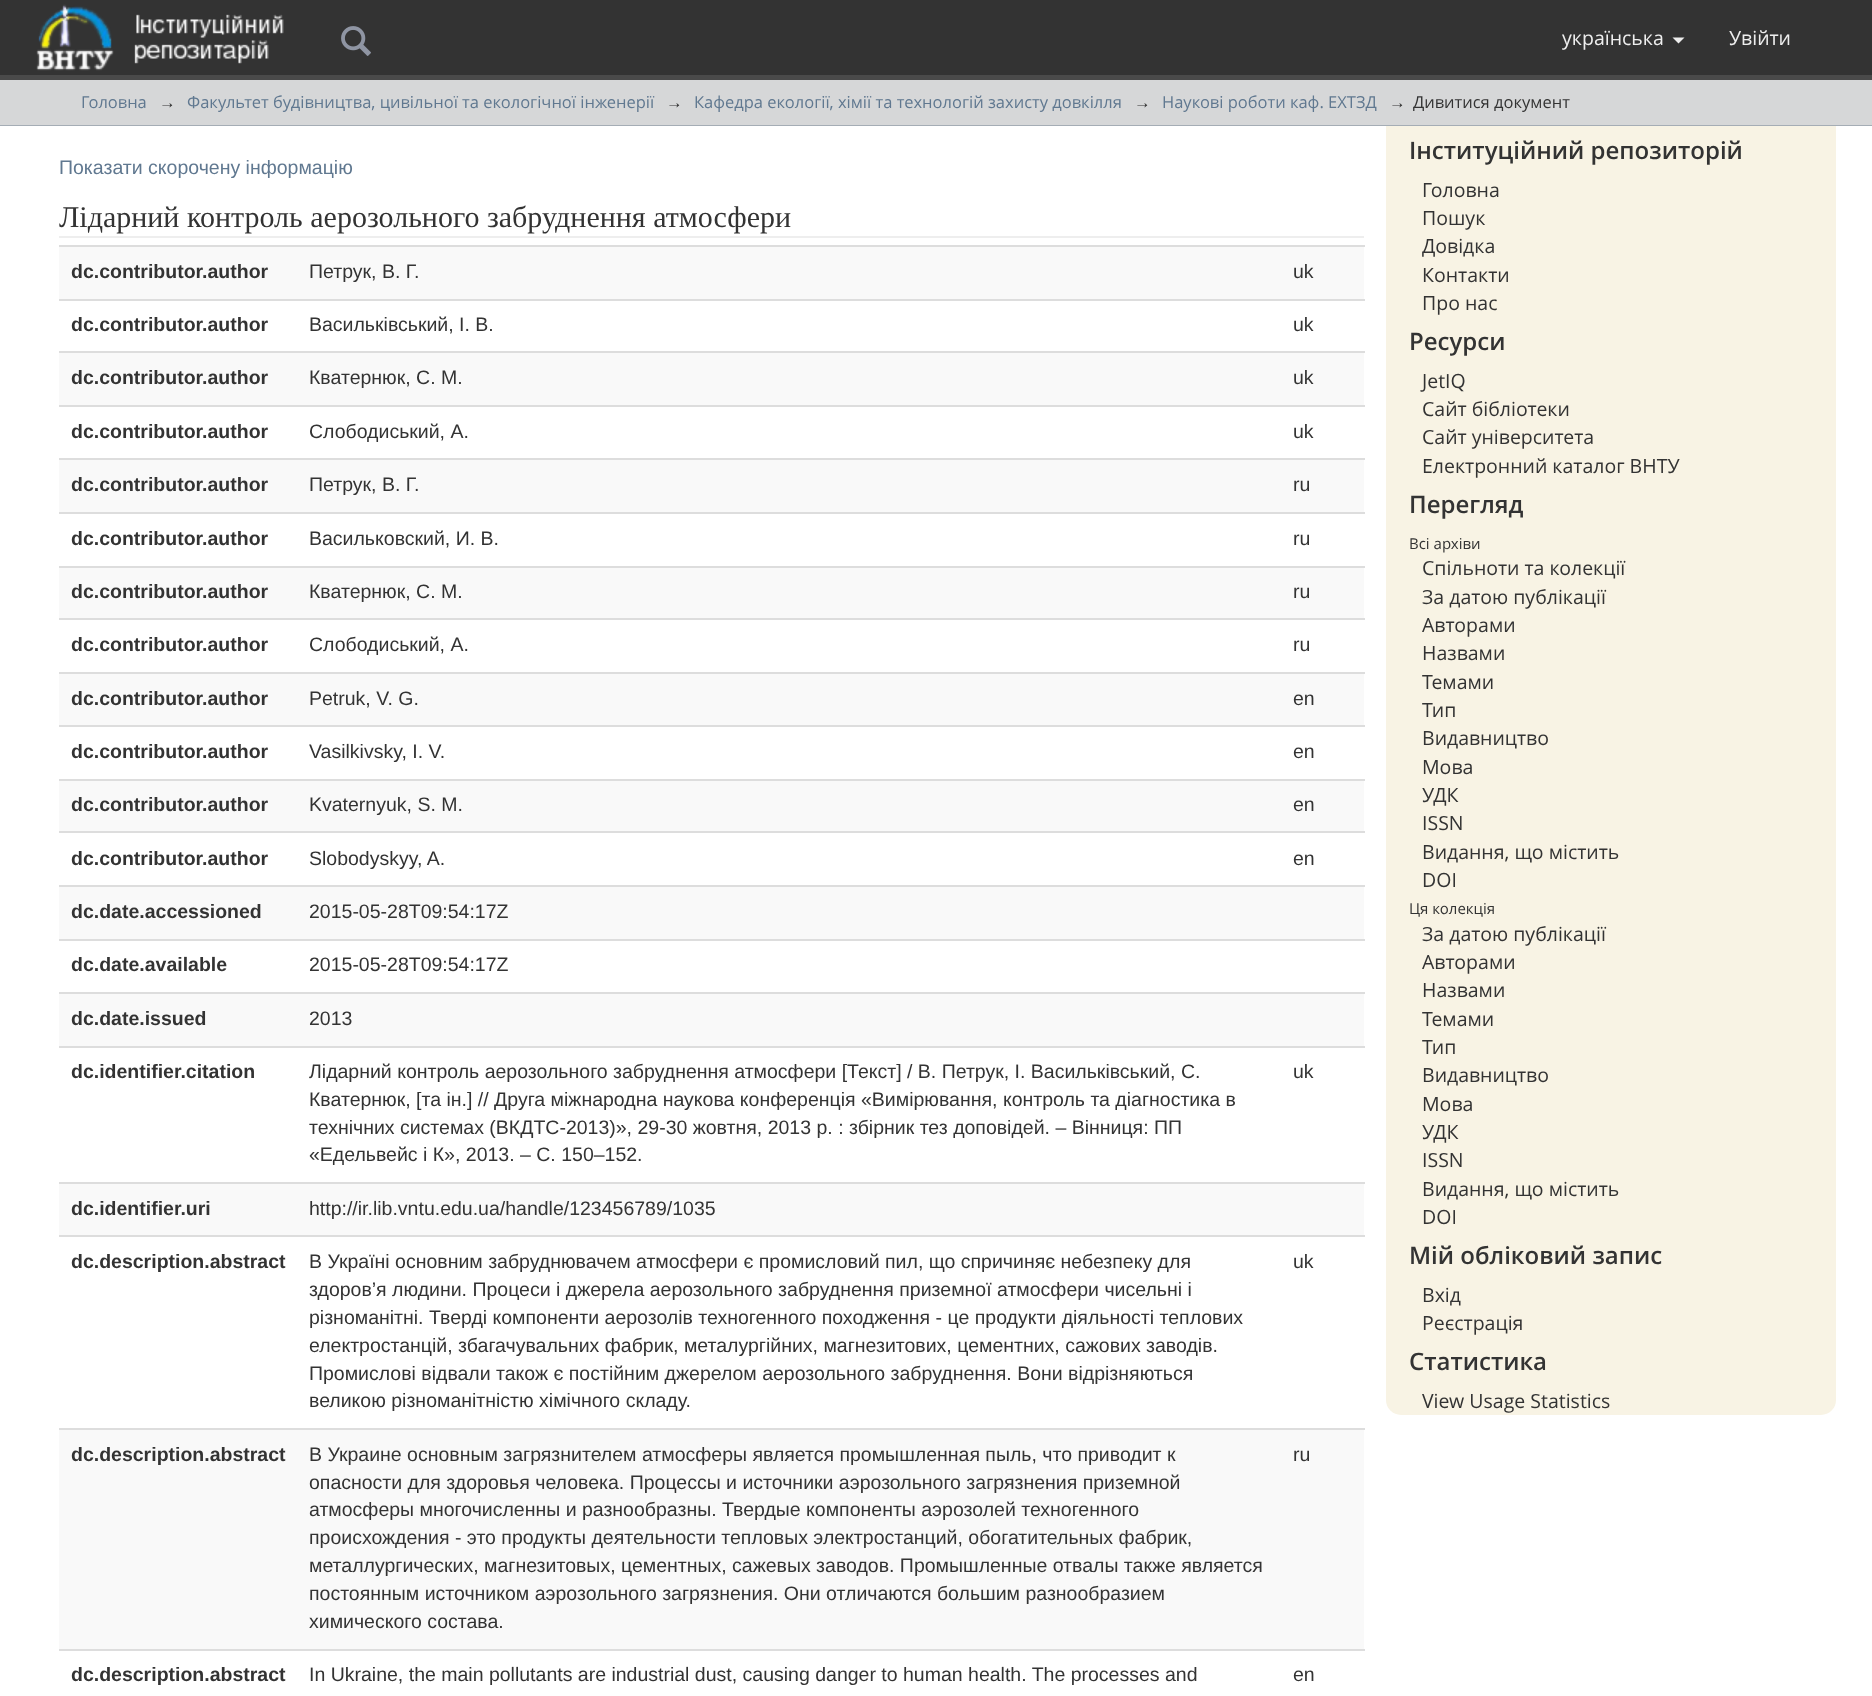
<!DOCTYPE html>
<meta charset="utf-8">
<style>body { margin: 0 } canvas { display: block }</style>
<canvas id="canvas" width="1872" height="1696"></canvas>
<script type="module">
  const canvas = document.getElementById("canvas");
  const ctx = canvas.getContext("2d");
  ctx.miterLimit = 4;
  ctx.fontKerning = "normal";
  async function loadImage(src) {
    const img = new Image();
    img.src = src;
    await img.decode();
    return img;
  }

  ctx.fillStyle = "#333333";
  ctx.fillRect(0, 0, 1872, 1696);
  ctx.fillStyle = "#4a4a4a";
  ctx.fillRect(0, 75, 1872, 5);
  ctx.drawImage(await loadImage("img1.png"), 36, 4, 78, 67);
  ctx.drawImage(await loadImage("img2.png"), 134, 14, 150, 50);
  ctx.drawImage(await loadImage("img3.png"), 341, 26, 30, 30);
  ctx.font = "19.5px Open Sans";
  ctx.fillStyle = "#eeeeee";
  ctx.fillText("українська", 1562, 45);
  ctx.beginPath();
  ctx.moveTo(1672.5, 37.5);
  ctx.lineTo(1684.5, 37.5);
  ctx.lineTo(1678.5, 43.5);
  ctx.closePath();
  ctx.fill();
  ctx.fillText("Увійти", 1729, 45);
  ctx.fillStyle = "#d6d7d8";
  ctx.fillRect(0, 80, 1872, 45);
  ctx.fillStyle = "#a5adb5";
  ctx.fillRect(0, 125, 1872, 1);
  ctx.font = "16.5px Open Sans";
  ctx.fillStyle = "#607890";
  ctx.fillText("Головна", 81, 108);
  ctx.font = "16.5px Liberation Sans";
  ctx.fillStyle = "#333333";
  ctx.fillText("→", 159, 108);
  ctx.font = "16.5px Open Sans";
  ctx.fillStyle = "#607890";
  ctx.fillText("Факультет будівництва, цивільної та екологічної інженерії", 187, 108);
  ctx.font = "16.5px Liberation Sans";
  ctx.fillStyle = "#333333";
  ctx.fillText("→", 666, 108);
  ctx.font = "16.5px Open Sans";
  ctx.fillStyle = "#607890";
  ctx.fillText("Кафедра екології, хімії та технологій захисту довкілля", 694, 108);
  ctx.font = "16.5px Liberation Sans";
  ctx.fillStyle = "#333333";
  ctx.fillText("→", 1134, 108);
  ctx.font = "16.5px Open Sans";
  ctx.fillStyle = "#607890";
  ctx.fillText("Наукові роботи каф. ЕХТЗД", 1162, 108);
  ctx.font = "16.5px Liberation Sans";
  ctx.fillStyle = "#333333";
  ctx.fillText("→", 1389, 108);
  ctx.font = "16.5px Open Sans";
  ctx.fillText("Дивитися документ", 1413, 108);
  ctx.fillStyle = "#ffffff";
  ctx.fillRect(0, 126, 1872, 1570);
  ctx.font = "19.5px Liberation Sans";
  ctx.fillStyle = "#607890";
  ctx.fillText("Показати скорочену інформацію", 59, 174);
  ctx.fillStyle = "#eeeeee";
  ctx.fillRect(59, 236, 1305, 2);
  ctx.font = "30px Liberation Serif";
  ctx.fillStyle = "#333333";
  ctx.fillText("Лідарний контроль аерозольного забруднення атмосфери", 59, 227);
  ctx.fillStyle = "#f9f9f9";
  ctx.fillRect(59, 247, 1305, 52);
  ctx.font = "bold 19.5px Liberation Sans";
  ctx.fillStyle = "#333333";
  ctx.fillText("dc.contributor.author", 71, 278);
  ctx.font = "19.5px Liberation Sans";
  ctx.fillText("Петрук, В. Г.", 309, 278);
  ctx.fillStyle = "#dddddd";
  ctx.fillRect(59, 245, 1306, 2);
  ctx.fillStyle = "#333333";
  ctx.fillText("uk", 1293, 278);
  ctx.font = "bold 19.5px Liberation Sans";
  ctx.fillText("dc.contributor.author", 71, 331);
  ctx.font = "19.5px Liberation Sans";
  ctx.fillText("Васильківський, І. В.", 309, 331);
  ctx.fillStyle = "#dddddd";
  ctx.fillRect(59, 299, 1306, 2);
  ctx.fillStyle = "#333333";
  ctx.fillText("uk", 1293, 331);
  ctx.fillStyle = "#f9f9f9";
  ctx.fillRect(59, 353, 1305, 52);
  ctx.font = "bold 19.5px Liberation Sans";
  ctx.fillStyle = "#333333";
  ctx.fillText("dc.contributor.author", 71, 384);
  ctx.font = "19.5px Liberation Sans";
  ctx.fillText("Кватернюк, С. М.", 309, 384);
  ctx.fillStyle = "#dddddd";
  ctx.fillRect(59, 351, 1306, 2);
  ctx.fillStyle = "#333333";
  ctx.fillText("uk", 1293, 384);
  ctx.font = "bold 19.5px Liberation Sans";
  ctx.fillText("dc.contributor.author", 71, 438);
  ctx.font = "19.5px Liberation Sans";
  ctx.fillText("Слободиський, А.", 309, 438);
  ctx.fillStyle = "#dddddd";
  ctx.fillRect(59, 405, 1306, 2);
  ctx.fillStyle = "#333333";
  ctx.fillText("uk", 1293, 438);
  ctx.fillStyle = "#f9f9f9";
  ctx.fillRect(59, 460, 1305, 52);
  ctx.font = "bold 19.5px Liberation Sans";
  ctx.fillStyle = "#333333";
  ctx.fillText("dc.contributor.author", 71, 491);
  ctx.font = "19.5px Liberation Sans";
  ctx.fillText("Петрук, В. Г.", 309, 491);
  ctx.fillStyle = "#dddddd";
  ctx.fillRect(59, 458, 1306, 2);
  ctx.fillStyle = "#333333";
  ctx.fillText("ru", 1293, 491);
  ctx.font = "bold 19.5px Liberation Sans";
  ctx.fillText("dc.contributor.author", 71, 545);
  ctx.font = "19.5px Liberation Sans";
  ctx.fillText("Васильковский, И. В.", 309, 545);
  ctx.fillStyle = "#dddddd";
  ctx.fillRect(59, 512, 1306, 2);
  ctx.fillStyle = "#333333";
  ctx.fillText("ru", 1293, 545);
  ctx.fillStyle = "#f9f9f9";
  ctx.fillRect(59, 568, 1305, 50);
  ctx.font = "bold 19.5px Liberation Sans";
  ctx.fillStyle = "#333333";
  ctx.fillText("dc.contributor.author", 71, 598);
  ctx.font = "19.5px Liberation Sans";
  ctx.fillText("Кватернюк, С. М.", 309, 598);
  ctx.fillStyle = "#dddddd";
  ctx.fillRect(59, 566, 1306, 2);
  ctx.fillStyle = "#333333";
  ctx.fillText("ru", 1293, 598);
  ctx.font = "bold 19.5px Liberation Sans";
  ctx.fillText("dc.contributor.author", 71, 651);
  ctx.font = "19.5px Liberation Sans";
  ctx.fillText("Слободиський, А.", 309, 651);
  ctx.fillStyle = "#dddddd";
  ctx.fillRect(59, 618, 1306, 2);
  ctx.fillStyle = "#333333";
  ctx.fillText("ru", 1293, 651);
  ctx.fillStyle = "#f9f9f9";
  ctx.fillRect(59, 674, 1305, 51);
  ctx.font = "bold 19.5px Liberation Sans";
  ctx.fillStyle = "#333333";
  ctx.fillText("dc.contributor.author", 71, 705);
  ctx.font = "19.5px Liberation Sans";
  ctx.fillText("Petruk, V. G.", 309, 705);
  ctx.fillStyle = "#dddddd";
  ctx.fillRect(59, 672, 1306, 2);
  ctx.fillStyle = "#333333";
  ctx.fillText("en", 1293, 705);
  ctx.font = "bold 19.5px Liberation Sans";
  ctx.fillText("dc.contributor.author", 71, 758);
  ctx.font = "19.5px Liberation Sans";
  ctx.fillText("Vasilkivsky, I. V.", 309, 758);
  ctx.fillStyle = "#dddddd";
  ctx.fillRect(59, 725, 1306, 2);
  ctx.fillStyle = "#333333";
  ctx.fillText("en", 1293, 758);
  ctx.fillStyle = "#f9f9f9";
  ctx.fillRect(59, 781, 1305, 50);
  ctx.font = "bold 19.5px Liberation Sans";
  ctx.fillStyle = "#333333";
  ctx.fillText("dc.contributor.author", 71, 811);
  ctx.font = "19.5px Liberation Sans";
  ctx.fillText("Kvaternyuk, S. M.", 309, 811);
  ctx.fillStyle = "#dddddd";
  ctx.fillRect(59, 779, 1306, 2);
  ctx.fillStyle = "#333333";
  ctx.fillText("en", 1293, 811);
  ctx.font = "bold 19.5px Liberation Sans";
  ctx.fillText("dc.contributor.author", 71, 865);
  ctx.font = "19.5px Liberation Sans";
  ctx.fillText("Slobodyskyy, A.", 309, 865);
  ctx.fillStyle = "#dddddd";
  ctx.fillRect(59, 831, 1306, 2);
  ctx.fillStyle = "#333333";
  ctx.fillText("en", 1293, 865);
  ctx.fillStyle = "#f9f9f9";
  ctx.fillRect(59, 887, 1305, 52);
  ctx.fillStyle = "#dddddd";
  ctx.fillRect(59, 885, 1306, 2);
  ctx.font = "bold 19.5px Liberation Sans";
  ctx.fillStyle = "#333333";
  ctx.fillText("dc.date.accessioned", 71, 918);
  ctx.font = "19.5px Liberation Sans";
  ctx.fillText("2015-05-28T09:54:17Z", 309, 918);
  ctx.fillStyle = "#dddddd";
  ctx.fillRect(59, 939, 1306, 2);
  ctx.font = "bold 19.5px Liberation Sans";
  ctx.fillStyle = "#333333";
  ctx.fillText("dc.date.available", 71, 971);
  ctx.font = "19.5px Liberation Sans";
  ctx.fillText("2015-05-28T09:54:17Z", 309, 971);
  ctx.fillStyle = "#f9f9f9";
  ctx.fillRect(59, 994, 1305, 52);
  ctx.fillStyle = "#dddddd";
  ctx.fillRect(59, 992, 1306, 2);
  ctx.font = "bold 19.5px Liberation Sans";
  ctx.fillStyle = "#333333";
  ctx.fillText("dc.date.issued", 71, 1025);
  ctx.font = "19.5px Liberation Sans";
  ctx.fillText("2013", 309, 1025);
  ctx.font = "bold 19.5px Liberation Sans";
  ctx.fillText("dc.identifier.citation", 71, 1078);
  ctx.font = "19.5px Liberation Sans";
  ctx.fillText("Лідарний контроль аерозольного забруднення атмосфери [Текст] / В. Петрук, І. Васильківський, С.", 309, 1078);
  ctx.fillText("Кватернюк, [та ін.] // Друга міжнародна наукова конференція «Вимірювання, контроль та діагностика в", 309, 1106);
  ctx.fillText("технічних системах (ВКДТС-2013)», 29-30 жовтня, 2013 р. : збірник тез доповідей. – Вінниця: ПП", 309, 1134);
  ctx.fillText("«Едельвейс і К», 2013. – С. 150–152.", 309, 1161);
  ctx.fillStyle = "#dddddd";
  ctx.fillRect(59, 1046, 1306, 2);
  ctx.fillStyle = "#333333";
  ctx.fillText("uk", 1293, 1078);
  ctx.fillStyle = "#f9f9f9";
  ctx.fillRect(59, 1184, 1305, 51);
  ctx.fillStyle = "#dddddd";
  ctx.fillRect(59, 1182, 1306, 2);
  ctx.font = "bold 19.5px Liberation Sans";
  ctx.fillStyle = "#333333";
  ctx.fillText("dc.identifier.uri", 71, 1215);
  ctx.font = "19.5px Liberation Sans";
  ctx.fillText("http://ir.lib.vntu.edu.ua/handle/123456789/1035", 309, 1215);
  ctx.font = "bold 19.5px Liberation Sans";
  ctx.fillText("dc.description.abstract", 71, 1268);
  ctx.font = "19.5px Liberation Sans";
  ctx.fillText("В Україні основним забруднювачем атмосфери є промисловий пил, що спричиняє небезпеку для", 309, 1268);
  ctx.fillText("здоров’я людини. Процеси і джерела аерозольного забруднення приземної атмосфери чисельні і", 309, 1296);
  ctx.fillText("різноманітні. Тверді компоненти аерозолів техногенного походження - це продукти діяльності теплових", 309, 1324);
  ctx.fillText("електростанцій, збагачувальних фабрик, металургійних, магнезитових, цементних, сажових заводів.", 309, 1352);
  ctx.fillText("Промислові відвали також є постійним джерелом аерозольного забруднення. Вони відрізняються", 309, 1380);
  ctx.fillText("великою різноманітністю хімічного складу.", 309, 1407);
  ctx.fillStyle = "#dddddd";
  ctx.fillRect(59, 1235, 1306, 2);
  ctx.fillStyle = "#333333";
  ctx.fillText("uk", 1293, 1268);
  ctx.fillStyle = "#f9f9f9";
  ctx.fillRect(59, 1430, 1305, 219);
  ctx.font = "bold 19.5px Liberation Sans";
  ctx.fillStyle = "#333333";
  ctx.fillText("dc.description.abstract", 71, 1461);
  ctx.font = "19.5px Liberation Sans";
  ctx.fillText("В Украине основным загрязнителем атмосферы является промышленная пыль, что приводит к", 309, 1461);
  ctx.fillText("опасности для здоровья человека. Процессы и источники аэрозольного загрязнения приземной", 309, 1489);
  ctx.fillText("атмосферы многочисленны и разнообразны. Твердые компоненты аэрозолей техногенного", 309, 1516);
  ctx.fillText("происхождения - это продукты деятельности тепловых электростанций, обогатительных фабрик,", 309, 1544);
  ctx.fillText("металлургических, магнезитовых, цементных, сажевых заводов. Промышленные отвалы также является", 309, 1572);
  ctx.fillText("постоянным источником аэрозольного загрязнения. Они отличаются большим разнообразием", 309, 1600);
  ctx.fillText("химического состава.", 309, 1628);
  ctx.fillStyle = "#dddddd";
  ctx.fillRect(59, 1428, 1306, 2);
  ctx.fillStyle = "#333333";
  ctx.fillText("ru", 1293, 1461);
  ctx.font = "bold 19.5px Liberation Sans";
  ctx.fillText("dc.description.abstract", 71, 1681);
  ctx.font = "19.5px Liberation Sans";
  ctx.fillText("In Ukraine, the main pollutants are industrial dust, causing danger to human health. The processes and", 309, 1681);
  ctx.fillStyle = "#dddddd";
  ctx.fillRect(59, 1649, 1306, 2);
  ctx.fillStyle = "#333333";
  ctx.fillText("en", 1293, 1681);
  ctx.fillStyle = "#f8f3e4";
  ctx.beginPath();
  ctx.roundRect(1386, 126, 450, 1289, [0, 0, 15, 15]);
  ctx.fill();
  ctx.font = "600 24px Open Sans";
  ctx.fillStyle = "#333333";
  ctx.fillText("Інституційний репозиторій", 1409, 159);
  ctx.font = "19.5px Open Sans";
  ctx.fillText("Головна", 1422, 197);
  ctx.fillText("Пошук", 1422, 225);
  ctx.fillText("Довідка", 1422, 253);
  ctx.fillText("Контакти", 1422, 282);
  ctx.fillText("Про нас", 1422, 310);
  ctx.font = "600 24px Open Sans";
  ctx.fillText("Ресурси", 1409, 350);
  ctx.font = "19.5px Open Sans";
  ctx.fillText("JetIQ", 1422, 388);
  ctx.fillText("Сайт бібліотеки", 1422, 416);
  ctx.fillText("Сайт університета", 1422, 444);
  ctx.fillText("Електронний каталог ВНТУ", 1422, 473);
  ctx.font = "600 24px Open Sans";
  ctx.fillText("Перегляд", 1409, 513);
  ctx.font = "15px Open Sans";
  ctx.fillText("Всі архіви", 1409, 549);
  ctx.font = "19.5px Open Sans";
  ctx.fillText("Спільноти та колекції", 1422, 575);
  ctx.fillText("За датою публікації", 1422, 604);
  ctx.fillText("Авторами", 1422, 632);
  ctx.fillText("Назвами", 1422, 660);
  ctx.fillText("Темами", 1422, 689);
  ctx.fillText("Тип", 1422, 717);
  ctx.fillText("Видавництво", 1422, 745);
  ctx.fillText("Мова", 1422, 774);
  ctx.fillText("УДК", 1422, 802);
  ctx.fillText("ISSN", 1422, 830);
  ctx.fillText("Видання, що містить", 1422, 859);
  ctx.fillText("DOI", 1422, 887);
  ctx.font = "15px Open Sans";
  ctx.fillText("Ця колекція", 1409, 914);
  ctx.font = "19.5px Open Sans";
  ctx.fillText("За датою публікації", 1422, 941);
  ctx.fillText("Авторами", 1422, 969);
  ctx.fillText("Назвами", 1422, 997);
  ctx.fillText("Темами", 1422, 1026);
  ctx.fillText("Тип", 1422, 1054);
  ctx.fillText("Видавництво", 1422, 1082);
  ctx.fillText("Мова", 1422, 1111);
  ctx.fillText("УДК", 1422, 1139);
  ctx.fillText("ISSN", 1422, 1167);
  ctx.fillText("Видання, що містить", 1422, 1196);
  ctx.fillText("DOI", 1422, 1224);
  ctx.font = "600 24px Open Sans";
  ctx.fillText("Мій обліковий запис", 1409, 1264);
  ctx.font = "19.5px Open Sans";
  ctx.fillText("Вхід", 1422, 1302);
  ctx.fillText("Реєстрація", 1422, 1330);
  ctx.font = "600 24px Open Sans";
  ctx.fillText("Статистика", 1409, 1370);
  ctx.font = "19.5px Open Sans";
  ctx.fillText("View Usage Statistics", 1422, 1408);
</script>
